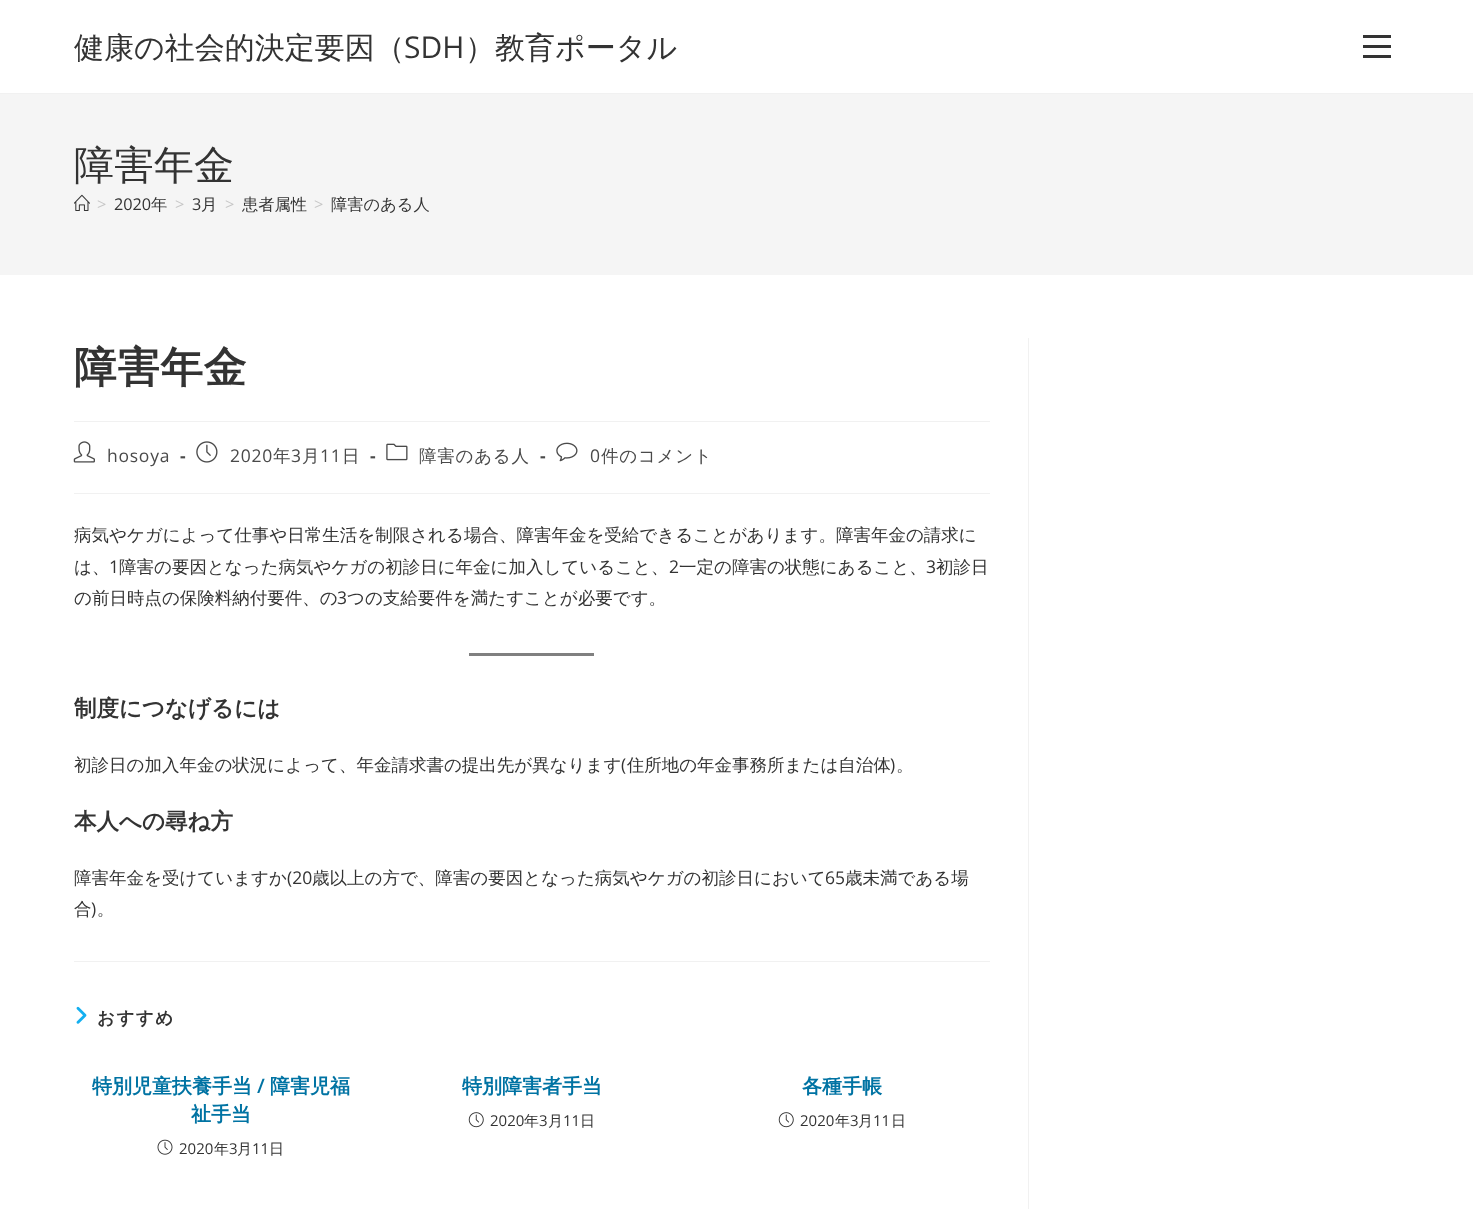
<!DOCTYPE html>
<meta charset="utf-8">
<style>body { margin: 0 } canvas { display: block }</style>
<canvas id="canvas" width="1473" height="1209"></canvas>
<script type="module">
  const canvas = document.getElementById("canvas");
  const ctx = canvas.getContext("2d");
  ctx.miterLimit = 4;
  ctx.fontKerning = "none";
  async function loadImage(src) {
    const img = new Image();
    img.src = src;
    await img.decode();
    return img;
  }

  ctx.fillStyle = "#ffffff";
  ctx.fillRect(0, 0, 1473, 1209);
  ctx.fillStyle = "#f1f1f1";
  ctx.fillRect(0, 93, 1473, 1);
  ctx.font = "500 30px WenQuanYi Zen Hei";
  ctx.fillStyle = "#333333";
  ctx.fillText("健康の社会的決定要因（", 74, 58);
  ctx.font = "30px Open Sans";
  ctx.fillText("SDH", 404, 58);
  ctx.font = "500 30px WenQuanYi Zen Hei";
  ctx.fillText("）教育ポータル", 465, 58);
  ctx.fillRect(1363, 45, 28, 3);
  ctx.fillRect(1363, 35, 28, 3);
  ctx.fillRect(1363, 55, 28, 3);
  ctx.fillStyle = "#f5f5f5";
  ctx.fillRect(0, 94, 1473, 181);
  ctx.font = "500 40px WenQuanYi Zen Hei";
  ctx.fillStyle = "#333333";
  ctx.fillText("障害年金", 74, 179);
  ctx.drawImage(await loadImage("img1.png"), 74, 194, 16, 17);
  ctx.font = "16.25px Open Sans";
  ctx.fillStyle = "#c6c6c6";
  ctx.fillText(">", 97, 210);
  ctx.fillStyle = "#333333";
  ctx.fillText("2020", 114, 210);
  ctx.font = "500 16.25px WenQuanYi Zen Hei";
  ctx.fillText("年", 151, 210);
  ctx.font = "16.25px Open Sans";
  ctx.fillStyle = "#c6c6c6";
  ctx.fillText(">", 175, 210);
  ctx.fillStyle = "#333333";
  ctx.fillText("3", 192, 210);
  ctx.font = "500 16.25px WenQuanYi Zen Hei";
  ctx.fillText("月", 201, 210);
  ctx.font = "16.25px Open Sans";
  ctx.fillStyle = "#c6c6c6";
  ctx.fillText(">", 225, 210);
  ctx.font = "500 16.25px WenQuanYi Zen Hei";
  ctx.fillStyle = "#333333";
  ctx.fillText("患者属性", 242, 210);
  ctx.font = "16.25px Open Sans";
  ctx.fillStyle = "#c6c6c6";
  ctx.fillText(">", 314, 210);
  ctx.font = "500 16.25px WenQuanYi Zen Hei";
  ctx.fillStyle = "#333333";
  ctx.fillText("障害のある人", 331, 210);
  ctx.fillStyle = "#f1f1f1";
  ctx.fillRect(1028, 338, 1, 871);
  ctx.fillRect(74, 421, 916, 1);
  ctx.letterSpacing = "0.75px";
  ctx.font = "bold 42.5px WenQuanYi Zen Hei";
  ctx.fillStyle = "#333333";
  ctx.fillText("障害年金", 74, 382);
  ctx.fillStyle = "#f1f1f1";
  ctx.fillRect(74, 493, 916, 1);
  ctx.drawImage(await loadImage("img2.png"), 73, 441, 22, 22);
  ctx.font = "17.5px Open Sans";
  ctx.fillStyle = "#4a4a4a";
  ctx.fillText("hosoya", 107, 462);
  ctx.font = "bold 17.5px Open Sans";
  ctx.fillText("-", 180, 462);
  ctx.drawImage(await loadImage("img3.png"), 196, 441, 22, 22);
  ctx.font = "17.5px Open Sans";
  ctx.fillText("2020", 230, 462);
  ctx.font = "500 17.5px WenQuanYi Zen Hei";
  ctx.fillText("年", 273, 462);
  ctx.font = "17.5px Open Sans";
  ctx.fillText("3", 291, 462);
  ctx.font = "500 17.5px WenQuanYi Zen Hei";
  ctx.fillText("月", 302, 462);
  ctx.font = "17.5px Open Sans";
  ctx.fillText("11", 320, 462);
  ctx.font = "500 17.5px WenQuanYi Zen Hei";
  ctx.fillText("日", 342, 462);
  ctx.font = "bold 17.5px Open Sans";
  ctx.fillText("-", 370, 462);
  ctx.drawImage(await loadImage("img4.png"), 386, 443, 22, 18);
  ctx.font = "500 17.5px WenQuanYi Zen Hei";
  ctx.fillText("障害のある人", 419, 462);
  ctx.font = "bold 17.5px Open Sans";
  ctx.fillText("-", 540, 462);
  ctx.drawImage(await loadImage("img5.png"), 556, 442, 22, 20);
  ctx.font = "17.5px Open Sans";
  ctx.fillText("0", 590, 462);
  ctx.font = "500 17.5px WenQuanYi Zen Hei";
  ctx.fillText("件のコメント", 601, 462);
  ctx.letterSpacing = "0px";
  ctx.fillStyle = "#333333";
  ctx.fillText("病気やケガによって仕事や日常生活を制限される場合、障害年金を受給できることがあります。障害年金の請求に", 74, 541);
  ctx.fillText("は、", 74, 573);
  ctx.font = "17.5px Open Sans";
  ctx.fillText("1", 109, 573);
  ctx.font = "500 17.5px WenQuanYi Zen Hei";
  ctx.fillText("障害の要因となった病気やケガの初診日に年金に加入していること、", 119, 573);
  ctx.font = "17.5px Open Sans";
  ctx.fillText("2", 669, 573);
  ctx.font = "500 17.5px WenQuanYi Zen Hei";
  ctx.fillText("一定の障害の状態にあること、", 679, 573);
  ctx.font = "17.5px Open Sans";
  ctx.fillText("3", 926, 573);
  ctx.font = "500 17.5px WenQuanYi Zen Hei";
  ctx.fillText("初診日", 936, 573);
  ctx.fillText("の前日時点の保険料納付要件、の", 74, 604);
  ctx.font = "17.5px Open Sans";
  ctx.fillText("3", 337, 604);
  ctx.font = "500 17.5px WenQuanYi Zen Hei";
  ctx.fillText("つの支給要件を満たすことが必要です。", 347, 604);
  ctx.fillStyle = "#808080";
  ctx.fillRect(469, 653, 125, 3);
  ctx.font = "bold 22.5px WenQuanYi Zen Hei";
  ctx.fillStyle = "#333333";
  ctx.fillText("制度につなげるには", 74, 716);
  ctx.font = "500 17.5px WenQuanYi Zen Hei";
  ctx.fillText("初診日の加入年金の状況によって、年金請求書の提出先が異なります 住所地の年金事務所または自治体 。", 74, 771);
  ctx.font = "17.5px Open Sans";
  ctx.fillText("(", 621, 771);
  ctx.fillText(")", 890, 771);
  ctx.font = "bold 22.5px WenQuanYi Zen Hei";
  ctx.fillText("本人への尋ね方", 74, 829);
  ctx.font = "500 17.5px WenQuanYi Zen Hei";
  ctx.fillText("障害年金を受けていますか", 74, 884);
  ctx.font = "17.5px Open Sans";
  ctx.fillText("(20", 287, 884);
  ctx.font = "500 17.5px WenQuanYi Zen Hei";
  ctx.fillText("歳以上の方で、障害の要因となった病気やケガの初診日において", 312, 884);
  ctx.font = "17.5px Open Sans";
  ctx.fillText("65", 825, 884);
  ctx.font = "500 17.5px WenQuanYi Zen Hei";
  ctx.fillText("歳未満である場", 845, 884);
  ctx.fillText("合 。", 74, 915);
  ctx.font = "17.5px Open Sans";
  ctx.fillText(")", 91, 915);
  ctx.fillStyle = "#f1f1f1";
  ctx.fillRect(74, 961, 916, 1);
  ctx.drawImage(await loadImage("img6.png"), 76, 1006, 11, 18);
  ctx.letterSpacing = "1.5px";
  ctx.font = "bold 17.5px WenQuanYi Zen Hei";
  ctx.fillStyle = "#333333";
  ctx.fillText("おすすめ", 97, 1024);
  ctx.letterSpacing = "0px";
  ctx.font = "bold 20px WenQuanYi Zen Hei";
  ctx.fillStyle = "#0073a3";
  ctx.fillText("特別児童扶養手当", 92, 1093);
  ctx.font = "600 20px Open Sans";
  ctx.fillText("/", 257, 1093);
  ctx.font = "bold 20px WenQuanYi Zen Hei";
  ctx.fillText("障害児福", 270, 1093);
  ctx.fillText("祉手当", 191, 1121);
  ctx.drawImage(await loadImage("img7.png"), 157, 1139, 16, 16);
  ctx.font = "15px Open Sans";
  ctx.fillStyle = "#333333";
  ctx.fillText("2020", 179, 1154);
  ctx.font = "500 15px WenQuanYi Zen Hei";
  ctx.fillText("年", 214, 1154);
  ctx.font = "15px Open Sans";
  ctx.fillText("3", 229, 1154);
  ctx.font = "500 15px WenQuanYi Zen Hei";
  ctx.fillText("月", 237, 1154);
  ctx.font = "15px Open Sans";
  ctx.fillText("11", 252, 1154);
  ctx.font = "500 15px WenQuanYi Zen Hei";
  ctx.fillText("日", 269, 1154);
  ctx.font = "bold 20px WenQuanYi Zen Hei";
  ctx.fillStyle = "#0073a3";
  ctx.fillText("特別障害者手当", 462, 1093);
  ctx.drawImage(await loadImage("img8.png"), 468, 1112, 16, 16);
  ctx.font = "15px Open Sans";
  ctx.fillStyle = "#333333";
  ctx.fillText("2020", 490, 1126);
  ctx.font = "500 15px WenQuanYi Zen Hei";
  ctx.fillText("年", 524, 1126);
  ctx.font = "15px Open Sans";
  ctx.fillText("3", 539, 1126);
  ctx.font = "500 15px WenQuanYi Zen Hei";
  ctx.fillText("月", 548, 1126);
  ctx.font = "15px Open Sans";
  ctx.fillText("11", 563, 1126);
  ctx.font = "500 15px WenQuanYi Zen Hei";
  ctx.fillText("日", 580, 1126);
  ctx.font = "bold 20px WenQuanYi Zen Hei";
  ctx.fillStyle = "#0073a3";
  ctx.fillText("各種手帳", 802, 1093);
  ctx.drawImage(await loadImage("img8.png"), 778, 1112, 16, 16);
  ctx.font = "15px Open Sans";
  ctx.fillStyle = "#333333";
  ctx.fillText("2020", 800, 1126);
  ctx.font = "500 15px WenQuanYi Zen Hei";
  ctx.fillText("年", 835, 1126);
  ctx.font = "15px Open Sans";
  ctx.fillText("3", 850, 1126);
  ctx.font = "500 15px WenQuanYi Zen Hei";
  ctx.fillText("月", 858, 1126);
  ctx.font = "15px Open Sans";
  ctx.fillText("11", 873, 1126);
  ctx.font = "500 15px WenQuanYi Zen Hei";
  ctx.fillText("日", 891, 1126);
</script>
